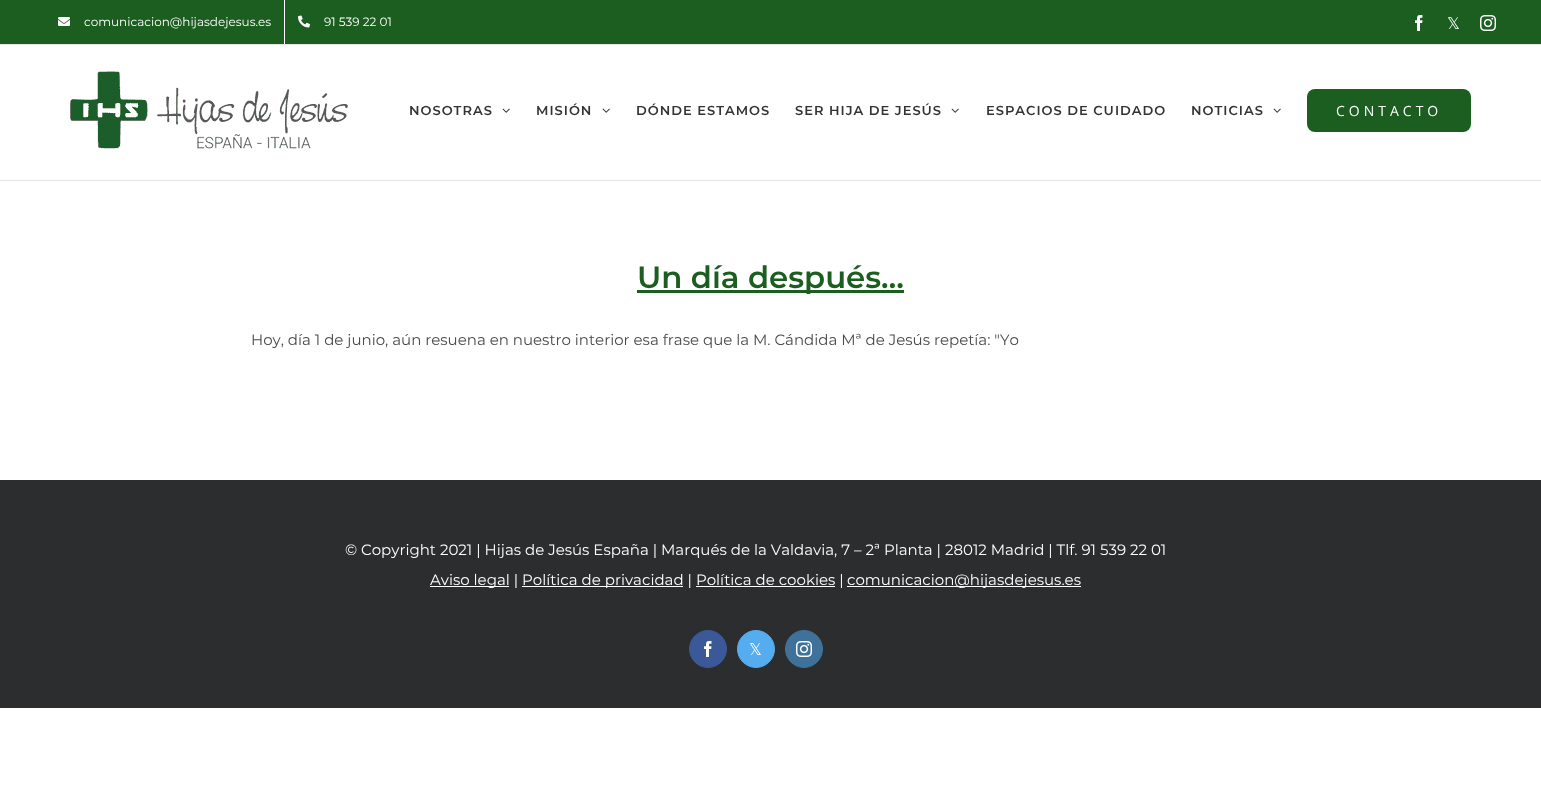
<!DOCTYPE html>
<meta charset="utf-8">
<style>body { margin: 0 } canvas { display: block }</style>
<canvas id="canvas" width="1541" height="790"></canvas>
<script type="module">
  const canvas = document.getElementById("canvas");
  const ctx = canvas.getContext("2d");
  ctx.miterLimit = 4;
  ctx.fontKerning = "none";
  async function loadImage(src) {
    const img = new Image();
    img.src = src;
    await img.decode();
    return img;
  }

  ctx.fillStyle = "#ffffff";
  ctx.fillRect(0, 0, 1541, 790);
  ctx.fillStyle = "#1b5e20";
  ctx.fillRect(0, 0, 1541, 44);
  ctx.fillStyle = "#e5e5e5";
  ctx.fillRect(0, 44, 1541, 1);
  ctx.drawImage(await loadImage("img1.png"), 58, 17, 12, 9);
  ctx.font = "12px Montserrat";
  ctx.fillStyle = "#ffffff";
  ctx.fillText("comunicacion@hijasdejesus.es", 84, 26);
  ctx.fillRect(284, 0, 1, 44);
  ctx.drawImage(await loadImage("img2.png"), 298, 15, 12, 13);
  ctx.fillText("91 539 22 01", 324, 26);
  ctx.drawImage(await loadImage("img3.png"), 1415, 15, 8, 16);
  ctx.font = "16px DejaVu Sans";
  ctx.fillText("𝕏", 1447, 29);
  ctx.drawImage(await loadImage("img4.png"), 1480, 15, 16, 16);
  ctx.fillStyle = "#e5e5e5";
  ctx.fillRect(0, 180, 1541, 1);
  ctx.drawImage(await loadImage("img5.png"), 70, 71, 278, 78);
  ctx.letterSpacing = "1px";
  ctx.font = "600 13px Montserrat";
  ctx.fillStyle = "#333333";
  ctx.fillText("NOSOTRAS", 409, 115);
  ctx.drawImage(await loadImage("img6.png"), 502, 108, 8, 5);
  ctx.fillText("MISIÓN", 536, 115);
  ctx.drawImage(await loadImage("img6.png"), 602, 108, 8, 5);
  ctx.fillText("DÓNDE ESTAMOS", 636, 115);
  ctx.fillText("SER HIJA DE JESÚS", 795, 115);
  ctx.drawImage(await loadImage("img6.png"), 951, 108, 8, 5);
  ctx.fillText("ESPACIOS DE CUIDADO", 986, 115);
  ctx.fillText("NOTICIAS", 1191, 115);
  ctx.drawImage(await loadImage("img6.png"), 1273, 108, 8, 5);
  ctx.fillStyle = "#1b5e20";
  ctx.beginPath();
  ctx.roundRect(1307, 89, 164, 43, 8);
  ctx.fill();
  ctx.letterSpacing = "4px";
  ctx.font = "14px Open Sans";
  ctx.fillStyle = "#ffffff";
  ctx.fillText("CONTACTO", 1336, 116);
  ctx.fillStyle = "#1b5e20";
  ctx.fillRect(637, 290, 267, 3);
  ctx.letterSpacing = "0px";
  ctx.font = "600 30.75px Montserrat";
  ctx.fillText("Un día después…", 637, 288);
  ctx.font = "15px Montserrat";
  ctx.fillStyle = "#4a4a4a";
  ctx.fillText("Hoy, día 1 de junio, aún resuena en nuestro interior esa frase que la M. Cándida Mª de Jesús repetía: \"Yo", 251, 345);
  ctx.fillStyle = "#2c2d2f";
  ctx.fillRect(0, 480, 1541, 228);
  ctx.fillStyle = "#ffffff";
  ctx.fillText("© Copyright 2021 | Hijas de Jesús España | Marqués de la Valdavia, 7 – 2ª Planta | 28012 Madrid | Tlf. 91 539 22 01", 345, 555);
  ctx.fillRect(430, 586, 79, 1);
  ctx.fillText("Aviso legal |", 430, 585);
  ctx.fillRect(522, 586, 161, 1);
  ctx.fillText("Política de privacidad | Política de cookies |", 522, 585);
  ctx.fillRect(696, 586, 139, 1);
  ctx.fillRect(847, 586, 234, 1);
  ctx.fillText("comunicacion@hijasdejesus.es", 847, 585);
  ctx.fillStyle = "#3b5998";
  ctx.beginPath();
  ctx.arc(708, 649, 18.5, 0, Math.PI * 2);
  ctx.fill();
  ctx.strokeStyle = "#3b5998";
  ctx.stroke();
  ctx.drawImage(await loadImage("img7.png"), 704, 641, 8, 16);
  ctx.fillStyle = "#55acee";
  ctx.beginPath();
  ctx.arc(756, 649, 18.5, 0, Math.PI * 2);
  ctx.fill();
  ctx.strokeStyle = "#55acee";
  ctx.stroke();
  ctx.font = "16px DejaVu Sans";
  ctx.fillStyle = "#ffffff";
  ctx.fillText("𝕏", 749, 655);
  ctx.fillStyle = "#3f729b";
  ctx.beginPath();
  ctx.arc(804, 649, 18.5, 0, Math.PI * 2);
  ctx.fill();
  ctx.strokeStyle = "#3f729b";
  ctx.stroke();
  ctx.drawImage(await loadImage("img8.png"), 796, 641, 16, 16);
</script>
